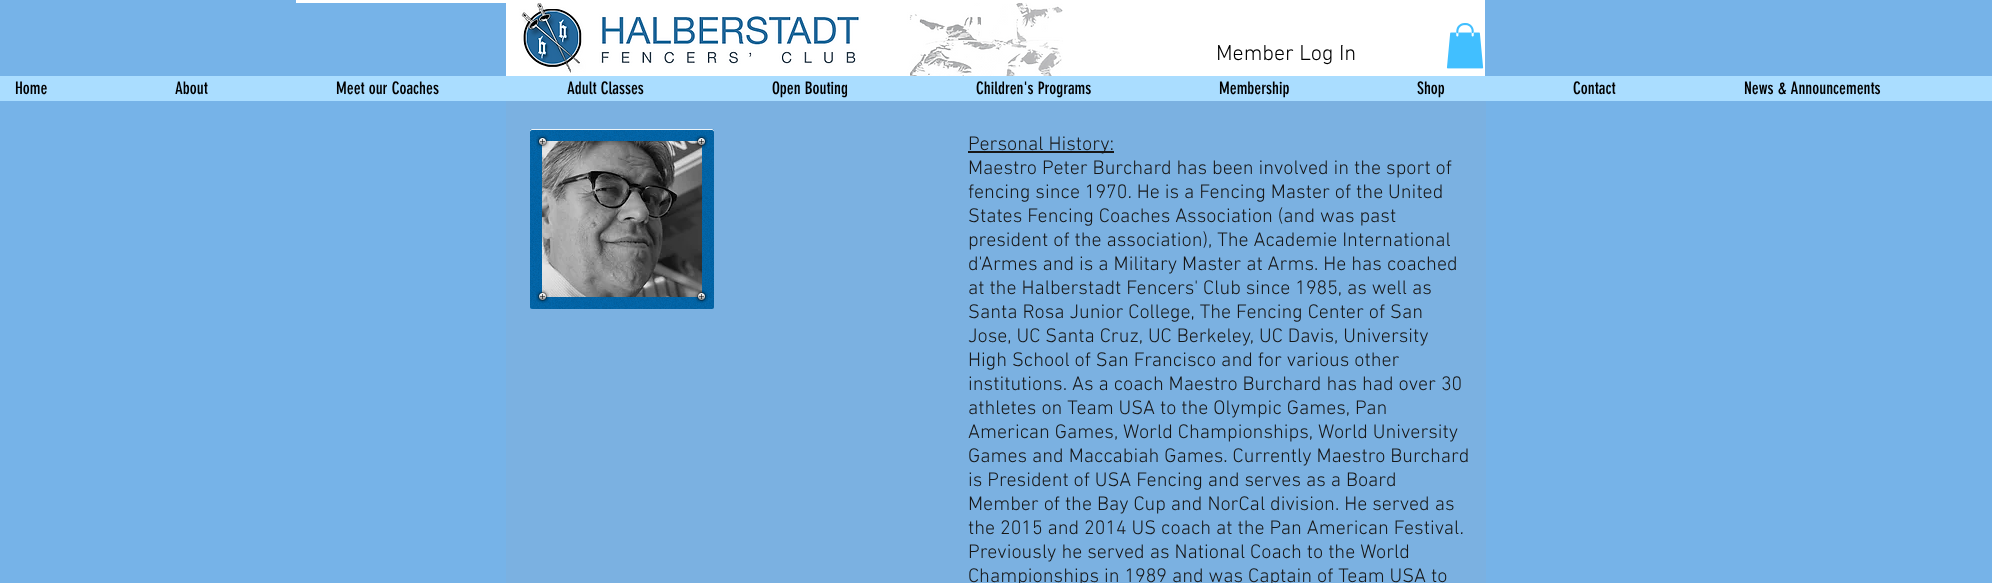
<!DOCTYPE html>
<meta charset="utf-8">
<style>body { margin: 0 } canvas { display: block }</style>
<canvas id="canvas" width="1992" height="583"></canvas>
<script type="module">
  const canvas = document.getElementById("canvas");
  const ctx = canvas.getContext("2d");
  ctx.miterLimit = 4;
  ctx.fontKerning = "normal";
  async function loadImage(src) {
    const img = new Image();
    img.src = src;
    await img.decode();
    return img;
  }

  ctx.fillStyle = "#76b3e8";
  ctx.fillRect(0, 0, 1992, 583);
  ctx.fillStyle = "#ffffff";
  ctx.fillRect(296, 0, 767, 3);
  ctx.drawImage(await loadImage("img1.png"), 506, 3, 557, 73);
  ctx.fillRect(1063, 0, 422, 76);
  ctx.font = "300 22px 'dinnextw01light'";
  ctx.fillStyle = "#000000";
  ctx.fillText("Member Log In", 1216, 60);
  ctx.drawImage(await loadImage("img2.png"), 1446, 23, 38, 46);
  ctx.fillStyle = "#aaddff";
  ctx.fillRect(0, 76, 1992, 25);
  ctx.font = "17px 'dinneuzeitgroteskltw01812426'";
  ctx.fillStyle = "#000000";
  ctx.fillText("Home", 15, 94);
  ctx.fillText("About", 175, 94);
  ctx.fillText("Meet our Coaches", 336, 94);
  ctx.fillText("Adult Classes", 567, 94);
  ctx.fillText("Open Bouting", 772, 94);
  ctx.fillText("Children's Programs", 976, 94);
  ctx.fillText("Membership", 1219, 94);
  ctx.fillText("Shop", 1417, 94);
  ctx.fillText("Contact", 1573, 94);
  ctx.fillText("News & Announcements", 1744, 94);
  ctx.fillStyle = "#7bb1e1";
  ctx.fillRect(506, 101, 980, 482);
  ctx.fillStyle = "#0065a9";
  ctx.beginPath();
  ctx.roundRect(530, 129, 184, 180, 2);
  ctx.fill();
  ctx.drawImage(await loadImage("img3.png"), 530, 129, 184, 180);
  ctx.fillStyle = "rgba(255, 255, 255, 0.92)";
  ctx.beginPath();
  ctx.moveTo(532, 130);
  ctx.bezierCurveTo(531, 130, 530, 131, 530, 132);
  ctx.lineTo(530, 131);
  ctx.bezierCurveTo(530, 130, 531, 129, 532, 129);
  ctx.lineTo(712, 129);
  ctx.bezierCurveTo(713, 129, 714, 130, 714, 131);
  ctx.lineTo(714, 132);
  ctx.bezierCurveTo(714, 131, 713, 130, 712, 130);
  ctx.closePath();
  ctx.fill();
  ctx.drawImage(await loadImage("img6.png"), 542, 141, 160, 156);
  ctx.drawImage(await loadImage("img4.png"), 536, 135, 13, 13);
  ctx.drawImage(await loadImage("img5.png"), 695, 135, 13, 13);
  ctx.drawImage(await loadImage("img7.png"), 536, 290, 13, 13);
  ctx.drawImage(await loadImage("img8.png"), 695, 290, 13, 13);
  ctx.fillStyle = "#171717";
  ctx.fillRect(968, 151, 146, 2);
  ctx.font = "300 20px 'dinnextw01light'";
  ctx.fillText("Personal History:", 968, 150);
  ctx.fillText("Maestro Peter Burchard has been involved in the sport of", 968, 174);
  ctx.fillText("fencing since 1970. He is a Fencing Master of the United", 968, 198);
  ctx.fillText("States Fencing Coaches Association (and was past", 968, 222);
  ctx.fillText("president of the association), The Academie International", 968, 246);
  ctx.fillText("d'Armes and is a Military Master at Arms. He has coached", 968, 270);
  ctx.fillText("at the Halberstadt Fencers' Club since 1985, as well as", 968, 294);
  ctx.fillText("Santa Rosa Junior College, The Fencing Center of San", 968, 318);
  ctx.fillText("Jose, UC Santa Cruz, UC Berkeley, UC Davis, University", 968, 342);
  ctx.fillText("High School of San Francisco and for various other", 968, 366);
  ctx.fillText("institutions. As a coach Maestro Burchard has had over 30", 968, 390);
  ctx.fillText("athletes on Team USA to the Olympic Games, Pan", 968, 414);
  ctx.fillText("American Games, World Championships, World University", 968, 438);
  ctx.fillText("Games and Maccabiah Games. Currently Maestro Burchard", 968, 462);
  ctx.fillText("is President of USA Fencing and serves as a Board", 968, 486);
  ctx.fillText("Member of the Bay Cup and NorCal division. He served as", 968, 510);
  ctx.fillText("the 2015 and 2014 US coach at the Pan American Festival.", 968, 534);
  ctx.fillText("Previously he served as National Coach to the World", 968, 558);
  ctx.fillText("Championships in 1989 and was Captain of Team USA to", 968, 582);
</script>
